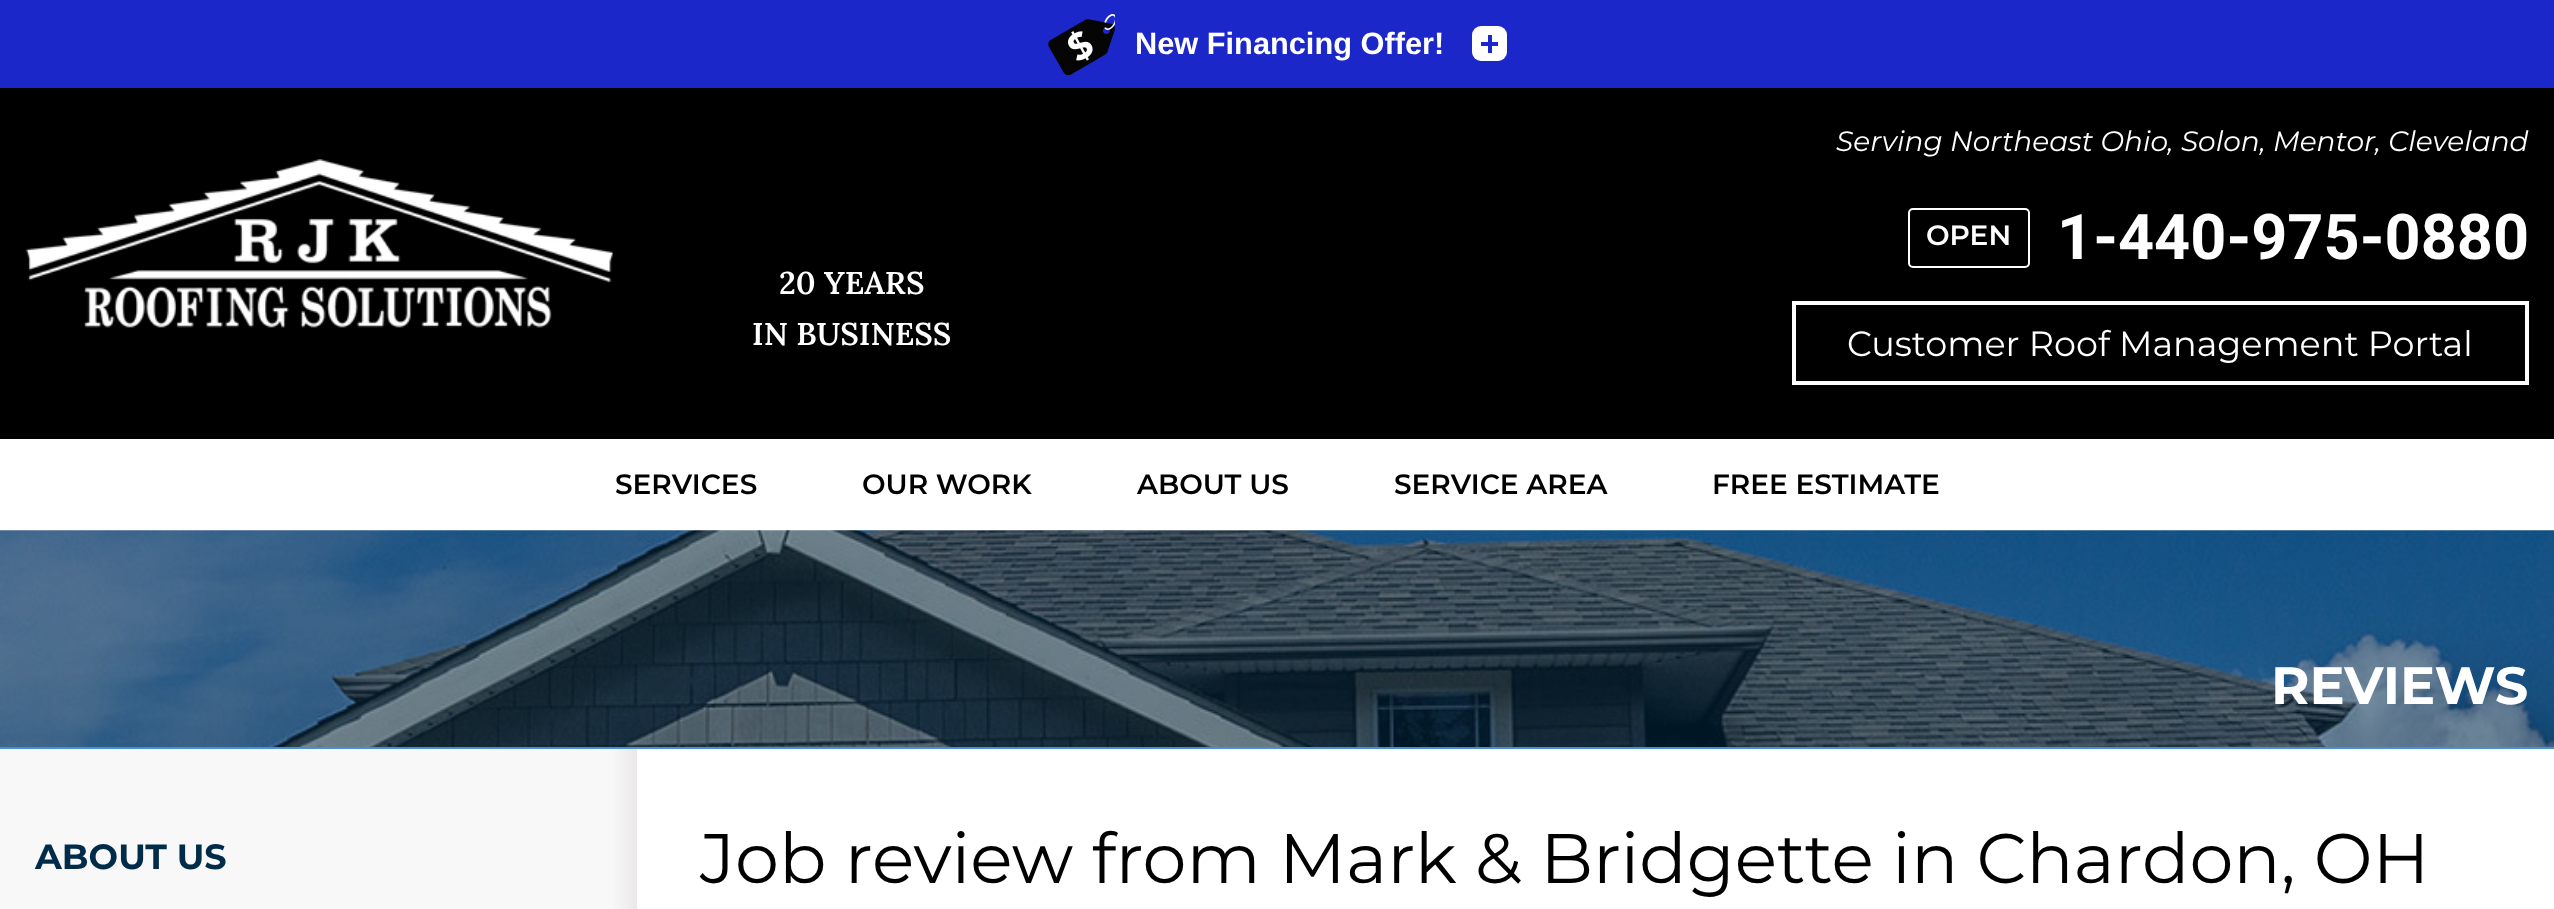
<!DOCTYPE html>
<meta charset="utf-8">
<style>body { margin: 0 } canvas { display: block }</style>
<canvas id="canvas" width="2554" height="909"></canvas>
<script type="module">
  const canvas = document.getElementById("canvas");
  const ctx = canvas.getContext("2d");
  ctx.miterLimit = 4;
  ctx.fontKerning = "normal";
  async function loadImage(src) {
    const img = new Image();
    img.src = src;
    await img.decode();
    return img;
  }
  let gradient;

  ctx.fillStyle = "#ffffff";
  ctx.fillRect(0, 0, 2554, 909);
  ctx.fillStyle = "#1c27ca";
  ctx.fillRect(0, 0, 2554, 88);
  ctx.drawImage(await loadImage("img1.png"), 1048, 14, 67, 61);
  ctx.font = "bold 30.75px Liberation Sans";
  ctx.fillStyle = "#ffffff";
  ctx.fillText("New Financing Offer!", 1135, 54);
  ctx.beginPath();
  ctx.roundRect(1472, 26, 35, 35, 9);
  ctx.fill();
  ctx.fillStyle = "#1c27ca";
  ctx.fillRect(1481, 42, 17, 4);
  ctx.fillRect(1488, 35, 4, 18);
  ctx.fillStyle = "#000000";
  ctx.fillRect(0, 88, 2554, 351);
  ctx.drawImage(await loadImage("img2.png"), 26, 159, 587, 169);
  ctx.font = "600 31.5px Lora";
  ctx.fillStyle = "#ffffff";
  ctx.fillText("20 YEARS", 779, 294);
  ctx.fillText("IN BUSINESS", 752, 345);
  ctx.font = "italic 28px Montserrat";
  ctx.fillText("Serving Northeast Ohio, Solon, Mentor, Cleveland", 1836, 151);
  ctx.beginPath();
  ctx.roundRect(1909, 209, 120, 58, 4);
  ctx.strokeStyle = "#ffffff";
  ctx.lineWidth = 2;
  ctx.stroke();
  ctx.font = "600 28px Montserrat";
  ctx.fillText("OPEN", 1926, 245);
  ctx.font = "bold 63px Roboto";
  ctx.fillText("1-440-975-0880", 2057, 259);
  ctx.lineWidth = 4;
  ctx.strokeRect(1794, 303, 733, 80);
  ctx.font = "35px Montserrat";
  ctx.fillText("Customer Roof Management Portal", 1847, 356);
  ctx.font = "600 28px Montserrat";
  ctx.fillStyle = "#000000";
  ctx.fillText("SERVICES", 615, 494);
  ctx.fillText("OUR WORK", 862, 494);
  ctx.fillText("ABOUT US", 1137, 494);
  ctx.fillText("SERVICE AREA", 1394, 494);
  ctx.fillText("FREE ESTIMATE", 1712, 494);
  ctx.drawImage(await loadImage("img3.png"), 0, 530, 2554, 217);
  ctx.fillStyle = "#4790d4";
  ctx.fillRect(0, 747, 2554, 2);
  ctx.font = "bold 52.5px Montserrat";
  ctx.fillStyle = "#ffffff";
  ctx.fillText("REVIEWS", 2271, 704);
  gradient = ctx.createLinearGradient(637, 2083, 0, 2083);
  gradient.addColorStop(0, "#e6e6e6");
  gradient.addColorStop(0, "#eae8e8");
  gradient.addColorStop(0.04, "#f8f8f8");
  ctx.fillStyle = gradient;
  ctx.fillRect(0, 749, 637, 160);
  ctx.font = "70px Montserrat";
  ctx.fillStyle = "#000000";
  ctx.fillText("Job review from Mark & Bridgette in Chardon, OH", 700, 883);
  ctx.font = "bold 35px Montserrat";
  ctx.fillStyle = "#002c49";
  ctx.fillText("ABOUT US", 35, 869);
</script>
